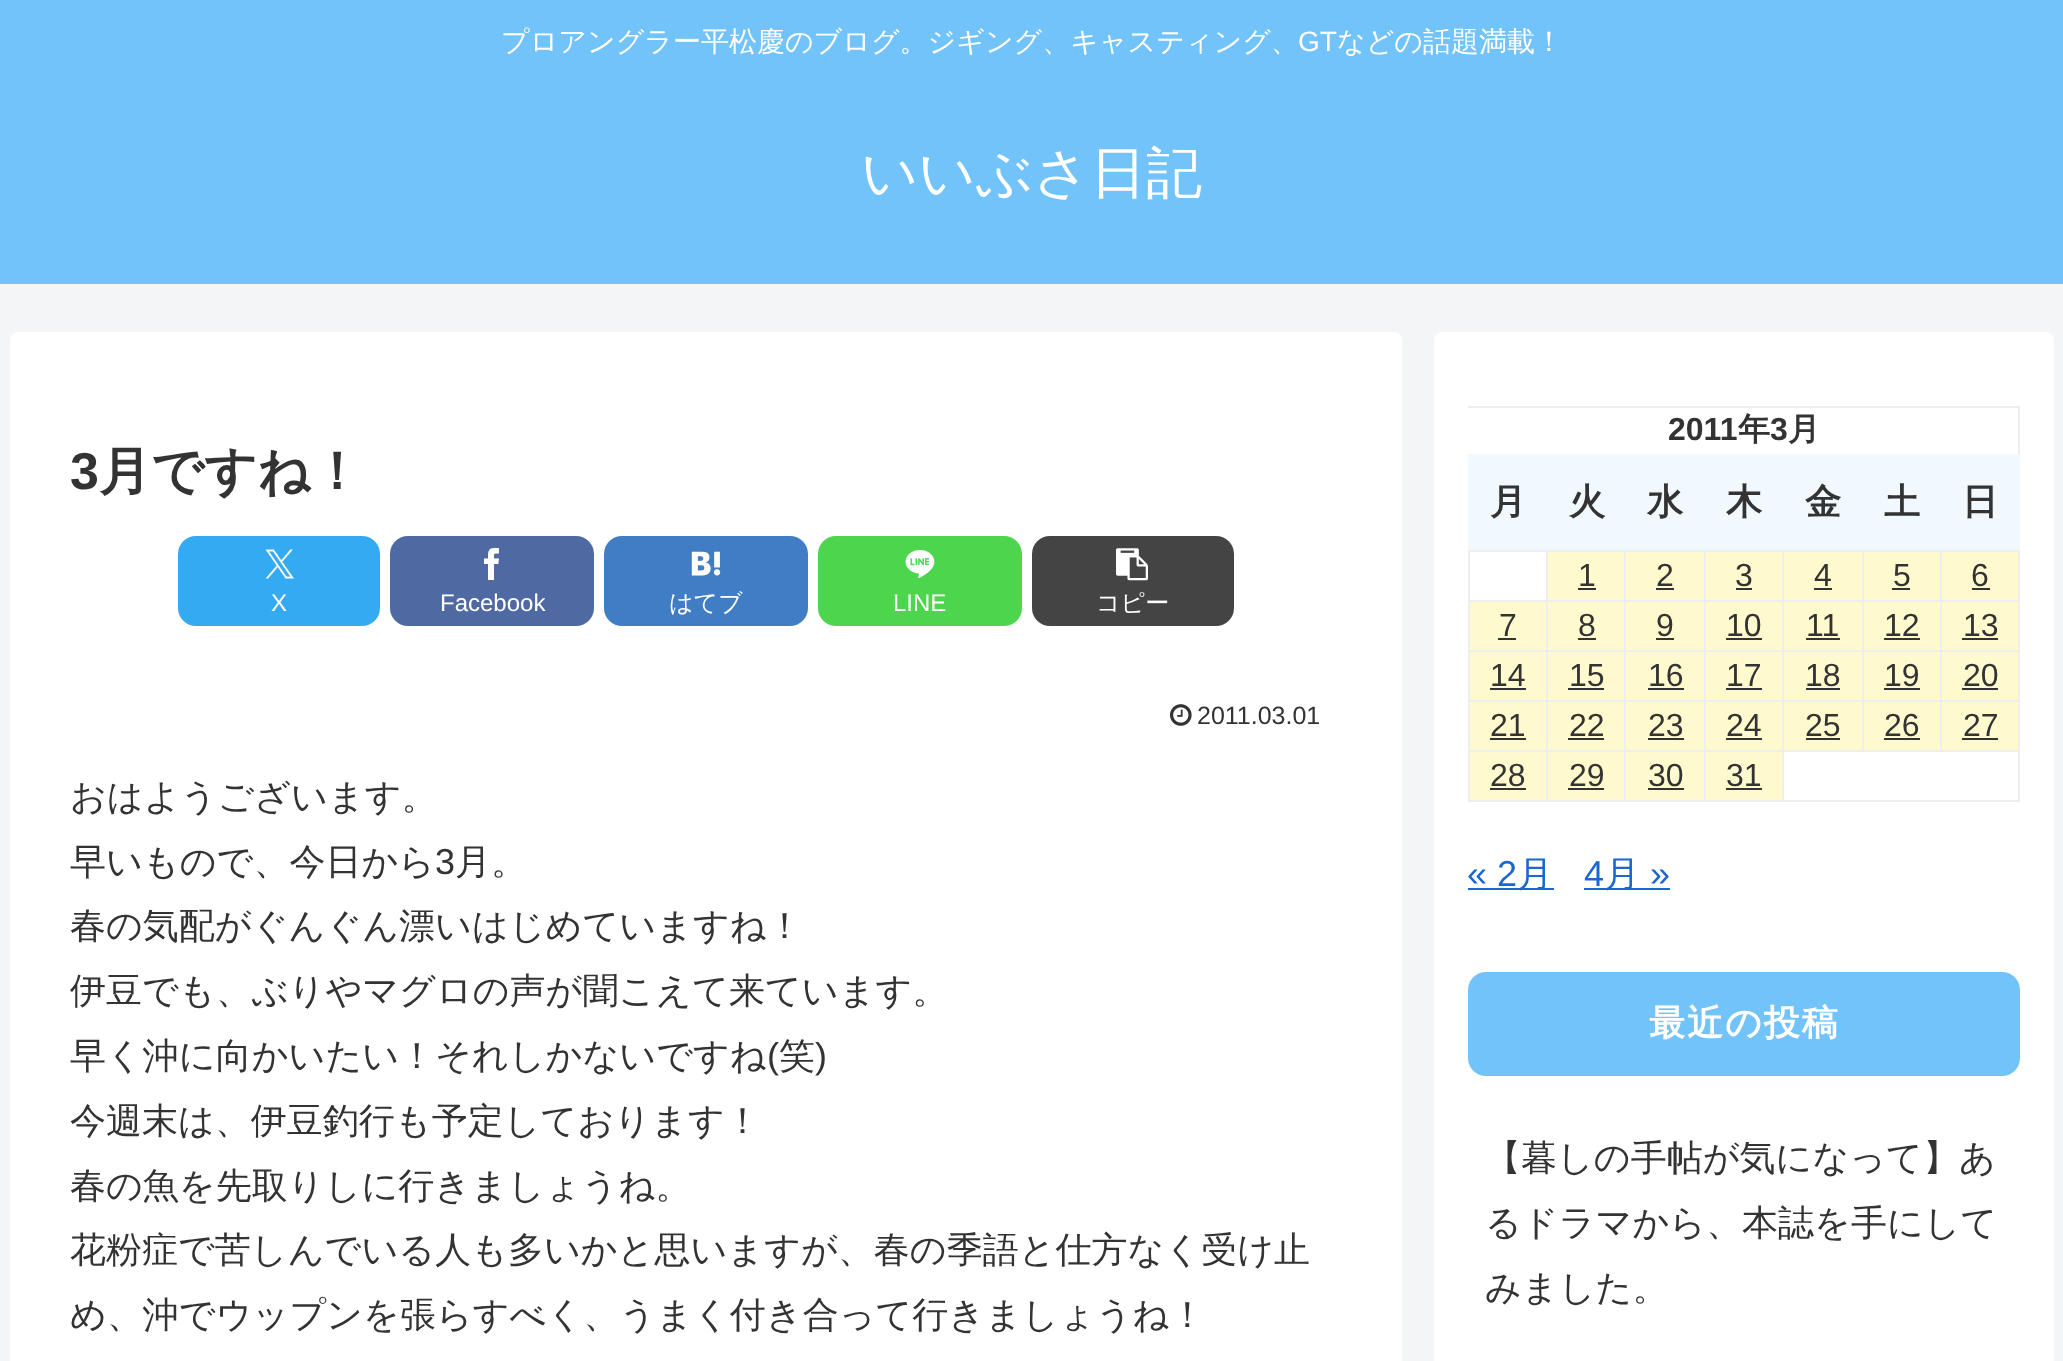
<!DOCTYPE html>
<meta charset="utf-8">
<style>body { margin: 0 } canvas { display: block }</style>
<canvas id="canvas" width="2063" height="1361"></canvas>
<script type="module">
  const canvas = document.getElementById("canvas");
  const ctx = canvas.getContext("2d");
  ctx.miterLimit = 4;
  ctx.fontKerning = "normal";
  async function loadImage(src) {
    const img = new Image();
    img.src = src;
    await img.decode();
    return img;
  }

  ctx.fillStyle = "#f4f5f7";
  ctx.fillRect(0, 0, 2063, 1361);
  ctx.fillStyle = "#73c3fb";
  ctx.fillRect(0, 0, 2063, 284);
  ctx.font = "500 28px WenQuanYi Zen Hei";
  ctx.fillStyle = "#ffffff";
  ctx.fillText("プロアングラー平松慶のブログ。ジギング、キャスティング、", 501, 51);
  ctx.font = "28px Liberation Sans";
  ctx.fillText("GT", 1298, 51);
  ctx.font = "500 28px WenQuanYi Zen Hei";
  ctx.fillText("などの話題満載！", 1337, 51);
  ctx.font = "500 56px WenQuanYi Zen Hei";
  ctx.fillText("いいぶさ日記", 861, 192);
  ctx.beginPath();
  ctx.roundRect(10, 332, 1392, 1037, 8);
  ctx.fill();
  ctx.font = "bold 52px Liberation Sans";
  ctx.fillStyle = "#333333";
  ctx.fillText("3", 70, 489);
  ctx.font = "bold 52px WenQuanYi Zen Hei";
  ctx.fillText("月ですね！", 99, 489);
  ctx.fillStyle = "#34aaf3";
  ctx.beginPath();
  ctx.roundRect(178, 536, 202, 90, 18);
  ctx.fill();
  ctx.drawImage(await loadImage("img1.png"), 265, 549, 29, 30);
  ctx.font = "24px Liberation Sans";
  ctx.fillStyle = "#ffffff";
  ctx.fillText("X", 271, 611);
  ctx.fillStyle = "#4f6aa2";
  ctx.beginPath();
  ctx.roundRect(390, 536, 204, 90, 18);
  ctx.fill();
  ctx.drawImage(await loadImage("img2.png"), 484, 548, 15, 32);
  ctx.fillStyle = "#ffffff";
  ctx.fillText("Facebook", 440, 611);
  ctx.fillStyle = "#417dc4";
  ctx.beginPath();
  ctx.roundRect(604, 536, 204, 90, 18);
  ctx.fill();
  ctx.drawImage(await loadImage("img3.png"), 691, 551, 30, 25);
  ctx.font = "500 24px WenQuanYi Zen Hei";
  ctx.fillStyle = "#ffffff";
  ctx.fillText("はてブ", 669, 611);
  ctx.fillStyle = "#4dd54d";
  ctx.beginPath();
  ctx.roundRect(818, 536, 204, 90, 18);
  ctx.fill();
  ctx.drawImage(await loadImage("img4.png"), 905, 549, 30, 30);
  ctx.font = "24px Liberation Sans";
  ctx.fillStyle = "#ffffff";
  ctx.fillText("LINE", 893, 611);
  ctx.fillStyle = "#444444";
  ctx.beginPath();
  ctx.roundRect(1032, 536, 202, 90, 18);
  ctx.fill();
  ctx.drawImage(await loadImage("img5.png"), 1116, 548, 32, 33);
  ctx.font = "500 24px WenQuanYi Zen Hei";
  ctx.fillStyle = "#ffffff";
  ctx.fillText("コピー", 1096, 611);
  ctx.drawImage(await loadImage("img6.png"), 1170, 704, 22, 22);
  ctx.font = "25px Liberation Sans";
  ctx.fillStyle = "#333333";
  ctx.fillText("2011.03.01", 1197, 724);
  ctx.font = "500 36px WenQuanYi Zen Hei";
  ctx.fillText("おはようございます。", 70, 809);
  ctx.fillText("早いもので、今日から", 70, 874);
  ctx.font = "36px Liberation Sans";
  ctx.fillText("3", 435, 874);
  ctx.font = "500 36px WenQuanYi Zen Hei";
  ctx.fillText("月。", 455, 874);
  ctx.fillText("春の気配がぐんぐん漂いはじめていますね！", 70, 938);
  ctx.fillText("伊豆でも、ぶりやマグロの声が聞こえて来ています。", 70, 1003);
  ctx.fillText("早く沖に向かいたい！それしかないですね", 70, 1068);
  ctx.font = "36px Liberation Sans";
  ctx.fillText("(", 767, 1068);
  ctx.font = "500 36px WenQuanYi Zen Hei";
  ctx.fillText("笑", 779, 1068);
  ctx.font = "36px Liberation Sans";
  ctx.fillText(")", 815, 1068);
  ctx.font = "500 36px WenQuanYi Zen Hei";
  ctx.fillText("今週末は、伊豆釣行も予定しております！", 70, 1133);
  ctx.fillText("春の魚を先取りしに行きましょうね。", 70, 1198);
  ctx.fillText("花粉症で苦しんでいる人も多いかと思いますが、春の季語と仕方なく受け止", 70, 1262);
  ctx.fillText("め、沖でウップンを張らすべく、うまく付き合って行きましょうね！", 70, 1327);
  ctx.fillStyle = "#ffffff";
  ctx.beginPath();
  ctx.roundRect(1434, 332, 620, 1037, 8);
  ctx.fill();
  ctx.fillStyle = "#eeeeee";
  ctx.fillRect(1468, 406, 552, 2);
  ctx.fillRect(2018, 406, 2, 396);
  ctx.font = "bold 32px Liberation Sans";
  ctx.fillStyle = "#333333";
  ctx.fillText("2011", 1668, 440);
  ctx.font = "bold 32px WenQuanYi Zen Hei";
  ctx.fillText("年", 1738, 440);
  ctx.font = "bold 32px Liberation Sans";
  ctx.fillText("3", 1770, 440);
  ctx.font = "bold 32px WenQuanYi Zen Hei";
  ctx.fillText("月", 1788, 440);
  ctx.fillStyle = "#f1f9fe";
  ctx.fillRect(1468, 454, 552, 96);
  ctx.font = "bold 36px WenQuanYi Zen Hei";
  ctx.fillStyle = "#333333";
  ctx.fillText("月", 1490, 514);
  ctx.fillText("火", 1569, 514);
  ctx.fillText("水", 1647, 514);
  ctx.fillText("木", 1726, 514);
  ctx.fillText("金", 1805, 514);
  ctx.fillText("土", 1884, 514);
  ctx.fillText("日", 1962, 514);
  ctx.fillStyle = "#eeeeee";
  ctx.fillRect(1940, 550, 80, 2);
  ctx.fillRect(1940, 600, 80, 2);
  ctx.fillRect(1940, 650, 80, 2);
  ctx.fillRect(1940, 700, 80, 2);
  ctx.fillRect(1782, 750, 238, 2);
  ctx.fillRect(1940, 700, 2, 52);
  ctx.fillRect(1862, 700, 80, 2);
  ctx.fillRect(1940, 650, 2, 52);
  ctx.fillRect(1862, 650, 80, 2);
  ctx.fillRect(1940, 600, 2, 52);
  ctx.fillRect(1862, 600, 80, 2);
  ctx.fillRect(1940, 550, 2, 52);
  ctx.fillRect(1862, 550, 80, 2);
  ctx.fillRect(1862, 700, 2, 52);
  ctx.fillRect(1782, 700, 82, 2);
  ctx.fillRect(1862, 650, 2, 52);
  ctx.fillRect(1782, 650, 82, 2);
  ctx.fillRect(1862, 600, 2, 52);
  ctx.fillRect(1782, 600, 82, 2);
  ctx.fillRect(1862, 550, 2, 52);
  ctx.fillRect(1782, 550, 82, 2);
  ctx.fillRect(1782, 800, 238, 2);
  ctx.fillRect(1782, 750, 2, 52);
  ctx.fillRect(1704, 750, 80, 2);
  ctx.fillRect(1782, 700, 2, 52);
  ctx.fillRect(1704, 700, 80, 2);
  ctx.fillRect(1782, 650, 2, 52);
  ctx.fillRect(1704, 650, 80, 2);
  ctx.fillRect(1782, 600, 2, 52);
  ctx.fillRect(1704, 600, 80, 2);
  ctx.fillRect(1782, 550, 2, 52);
  ctx.fillRect(1704, 550, 80, 2);
  ctx.fillRect(1704, 800, 80, 2);
  ctx.fillRect(1704, 750, 2, 52);
  ctx.fillRect(1624, 750, 82, 2);
  ctx.fillRect(1704, 700, 2, 52);
  ctx.fillRect(1624, 700, 82, 2);
  ctx.fillRect(1704, 650, 2, 52);
  ctx.fillRect(1624, 650, 82, 2);
  ctx.fillRect(1704, 600, 2, 52);
  ctx.fillRect(1624, 600, 82, 2);
  ctx.fillRect(1704, 550, 2, 52);
  ctx.fillRect(1624, 550, 82, 2);
  ctx.fillRect(1624, 800, 82, 2);
  ctx.fillRect(1624, 750, 2, 52);
  ctx.fillRect(1546, 750, 80, 2);
  ctx.fillRect(1624, 700, 2, 52);
  ctx.fillRect(1546, 700, 80, 2);
  ctx.fillRect(1624, 650, 2, 52);
  ctx.fillRect(1546, 650, 80, 2);
  ctx.fillRect(1624, 600, 2, 52);
  ctx.fillRect(1546, 600, 80, 2);
  ctx.fillRect(1624, 550, 2, 52);
  ctx.fillRect(1546, 550, 80, 2);
  ctx.fillRect(1546, 800, 80, 2);
  ctx.fillRect(1546, 750, 2, 52);
  ctx.fillRect(1468, 750, 80, 2);
  ctx.fillRect(1546, 700, 2, 52);
  ctx.fillRect(1468, 700, 80, 2);
  ctx.fillRect(1546, 650, 2, 52);
  ctx.fillRect(1468, 650, 80, 2);
  ctx.fillRect(1546, 600, 2, 52);
  ctx.fillRect(1468, 600, 80, 2);
  ctx.fillRect(1546, 550, 2, 52);
  ctx.fillRect(1468, 550, 80, 2);
  ctx.fillRect(1468, 800, 80, 2);
  ctx.fillRect(1468, 750, 2, 52);
  ctx.fillRect(1468, 700, 2, 52);
  ctx.fillRect(1468, 650, 2, 52);
  ctx.fillRect(1468, 600, 2, 52);
  ctx.fillRect(1468, 550, 2, 52);
  ctx.fillStyle = "#ffface";
  ctx.fillRect(1548, 552, 76, 48);
  ctx.font = "32px Liberation Sans";
  ctx.fillStyle = "#333333";
  ctx.fillText("1", 1578, 586);
  ctx.fillRect(1578, 588, 18, 2);
  ctx.fillStyle = "#ffface";
  ctx.fillRect(1626, 552, 78, 48);
  ctx.fillStyle = "#333333";
  ctx.fillText("2", 1656, 586);
  ctx.fillRect(1656, 588, 18, 2);
  ctx.fillStyle = "#ffface";
  ctx.fillRect(1706, 552, 76, 48);
  ctx.fillStyle = "#333333";
  ctx.fillText("3", 1735, 586);
  ctx.fillRect(1736, 588, 16, 2);
  ctx.fillStyle = "#ffface";
  ctx.fillRect(1784, 552, 78, 48);
  ctx.fillStyle = "#333333";
  ctx.fillText("4", 1814, 586);
  ctx.fillRect(1814, 588, 18, 2);
  ctx.fillStyle = "#ffface";
  ctx.fillRect(1864, 552, 76, 48);
  ctx.fillStyle = "#333333";
  ctx.fillText("5", 1893, 586);
  ctx.fillRect(1892, 588, 18, 2);
  ctx.fillStyle = "#ffface";
  ctx.fillRect(1942, 552, 76, 48);
  ctx.fillStyle = "#333333";
  ctx.fillText("6", 1971, 586);
  ctx.fillRect(1972, 588, 18, 2);
  ctx.fillStyle = "#ffface";
  ctx.fillRect(1470, 602, 76, 48);
  ctx.fillStyle = "#333333";
  ctx.fillText("7", 1499, 636);
  ctx.fillRect(1498, 638, 18, 2);
  ctx.fillStyle = "#ffface";
  ctx.fillRect(1548, 602, 76, 48);
  ctx.fillStyle = "#333333";
  ctx.fillText("8", 1578, 636);
  ctx.fillRect(1578, 638, 18, 2);
  ctx.fillStyle = "#ffface";
  ctx.fillRect(1626, 602, 78, 48);
  ctx.fillStyle = "#333333";
  ctx.fillText("9", 1656, 636);
  ctx.fillRect(1656, 638, 18, 2);
  ctx.fillStyle = "#ffface";
  ctx.fillRect(1706, 602, 76, 48);
  ctx.fillStyle = "#333333";
  ctx.fillText("10", 1726, 636);
  ctx.fillRect(1726, 638, 36, 2);
  ctx.fillStyle = "#ffface";
  ctx.fillRect(1784, 602, 78, 48);
  ctx.fillStyle = "#333333";
  ctx.fillText("11", 1806, 636);
  ctx.fillRect(1806, 638, 34, 2);
  ctx.fillStyle = "#ffface";
  ctx.fillRect(1864, 602, 76, 48);
  ctx.fillStyle = "#333333";
  ctx.fillText("12", 1884, 636);
  ctx.fillRect(1884, 638, 36, 2);
  ctx.fillStyle = "#ffface";
  ctx.fillRect(1942, 602, 76, 48);
  ctx.fillStyle = "#333333";
  ctx.fillText("13", 1963, 636);
  ctx.fillRect(1962, 638, 36, 2);
  ctx.fillStyle = "#ffface";
  ctx.fillRect(1470, 652, 76, 48);
  ctx.fillStyle = "#333333";
  ctx.fillText("14", 1490, 686);
  ctx.fillRect(1490, 688, 36, 2);
  ctx.fillStyle = "#ffface";
  ctx.fillRect(1548, 652, 76, 48);
  ctx.fillStyle = "#333333";
  ctx.fillText("15", 1569, 686);
  ctx.fillRect(1568, 688, 36, 2);
  ctx.fillStyle = "#ffface";
  ctx.fillRect(1626, 652, 78, 48);
  ctx.fillStyle = "#333333";
  ctx.fillText("16", 1648, 686);
  ctx.fillRect(1648, 688, 36, 2);
  ctx.fillStyle = "#ffface";
  ctx.fillRect(1706, 652, 76, 48);
  ctx.fillStyle = "#333333";
  ctx.fillText("17", 1726, 686);
  ctx.fillRect(1726, 688, 36, 2);
  ctx.fillStyle = "#ffface";
  ctx.fillRect(1784, 652, 78, 48);
  ctx.fillStyle = "#333333";
  ctx.fillText("18", 1805, 686);
  ctx.fillRect(1806, 688, 34, 2);
  ctx.fillStyle = "#ffface";
  ctx.fillRect(1864, 652, 76, 48);
  ctx.fillStyle = "#333333";
  ctx.fillText("19", 1884, 686);
  ctx.fillRect(1884, 688, 36, 2);
  ctx.fillStyle = "#ffface";
  ctx.fillRect(1942, 652, 76, 48);
  ctx.fillStyle = "#333333";
  ctx.fillText("20", 1963, 686);
  ctx.fillRect(1962, 688, 36, 2);
  ctx.fillStyle = "#ffface";
  ctx.fillRect(1470, 702, 76, 48);
  ctx.fillStyle = "#333333";
  ctx.fillText("21", 1490, 736);
  ctx.fillRect(1490, 738, 36, 2);
  ctx.fillStyle = "#ffface";
  ctx.fillRect(1548, 702, 76, 48);
  ctx.fillStyle = "#333333";
  ctx.fillText("22", 1569, 736);
  ctx.fillRect(1568, 738, 36, 2);
  ctx.fillStyle = "#ffface";
  ctx.fillRect(1626, 702, 78, 48);
  ctx.fillStyle = "#333333";
  ctx.fillText("23", 1648, 736);
  ctx.fillRect(1648, 738, 36, 2);
  ctx.fillStyle = "#ffface";
  ctx.fillRect(1706, 702, 76, 48);
  ctx.fillStyle = "#333333";
  ctx.fillText("24", 1726, 736);
  ctx.fillRect(1726, 738, 36, 2);
  ctx.fillStyle = "#ffface";
  ctx.fillRect(1784, 702, 78, 48);
  ctx.fillStyle = "#333333";
  ctx.fillText("25", 1805, 736);
  ctx.fillRect(1806, 738, 34, 2);
  ctx.fillStyle = "#ffface";
  ctx.fillRect(1864, 702, 76, 48);
  ctx.fillStyle = "#333333";
  ctx.fillText("26", 1884, 736);
  ctx.fillRect(1884, 738, 36, 2);
  ctx.fillStyle = "#ffface";
  ctx.fillRect(1942, 702, 76, 48);
  ctx.fillStyle = "#333333";
  ctx.fillText("27", 1963, 736);
  ctx.fillRect(1962, 738, 36, 2);
  ctx.fillStyle = "#ffface";
  ctx.fillRect(1470, 752, 76, 48);
  ctx.fillStyle = "#333333";
  ctx.fillText("28", 1490, 786);
  ctx.fillRect(1490, 788, 36, 2);
  ctx.fillStyle = "#ffface";
  ctx.fillRect(1548, 752, 76, 48);
  ctx.fillStyle = "#333333";
  ctx.fillText("29", 1569, 786);
  ctx.fillRect(1568, 788, 36, 2);
  ctx.fillStyle = "#ffface";
  ctx.fillRect(1626, 752, 78, 48);
  ctx.fillStyle = "#333333";
  ctx.fillText("30", 1648, 786);
  ctx.fillRect(1648, 788, 36, 2);
  ctx.fillStyle = "#ffface";
  ctx.fillRect(1706, 752, 76, 48);
  ctx.fillStyle = "#333333";
  ctx.fillText("31", 1726, 786);
  ctx.fillRect(1726, 788, 36, 2);
  ctx.font = "36px Liberation Sans";
  ctx.fillStyle = "#1967d2";
  ctx.fillText("« 2", 1467, 886);
  ctx.fillRect(1468, 888, 86, 2);
  ctx.font = "500 36px WenQuanYi Zen Hei";
  ctx.fillText("月", 1517, 886);
  ctx.font = "36px Liberation Sans";
  ctx.fillText("4", 1584, 886);
  ctx.fillRect(1584, 888, 86, 2);
  ctx.font = "500 36px WenQuanYi Zen Hei";
  ctx.fillText("月", 1604, 886);
  ctx.font = "36px Liberation Sans";
  ctx.fillText("»", 1650, 886);
  ctx.fillStyle = "#73c3fb";
  ctx.beginPath();
  ctx.roundRect(1468, 972, 552, 104, 18);
  ctx.fill();
  ctx.letterSpacing = "2px";
  ctx.font = "bold 36px WenQuanYi Zen Hei";
  ctx.fillStyle = "#ffffff";
  ctx.fillText("最近の投稿", 1649, 1035);
  ctx.letterSpacing = "0px";
  ctx.font = "500 36px WenQuanYi Zen Hei";
  ctx.fillStyle = "#333333";
  ctx.fillText("【暮しの手帖が気になって】あ", 1485, 1170);
  ctx.fillText("るドラマから、本誌を手にして", 1485, 1235);
  ctx.fillText("みました。", 1485, 1300);
</script>
